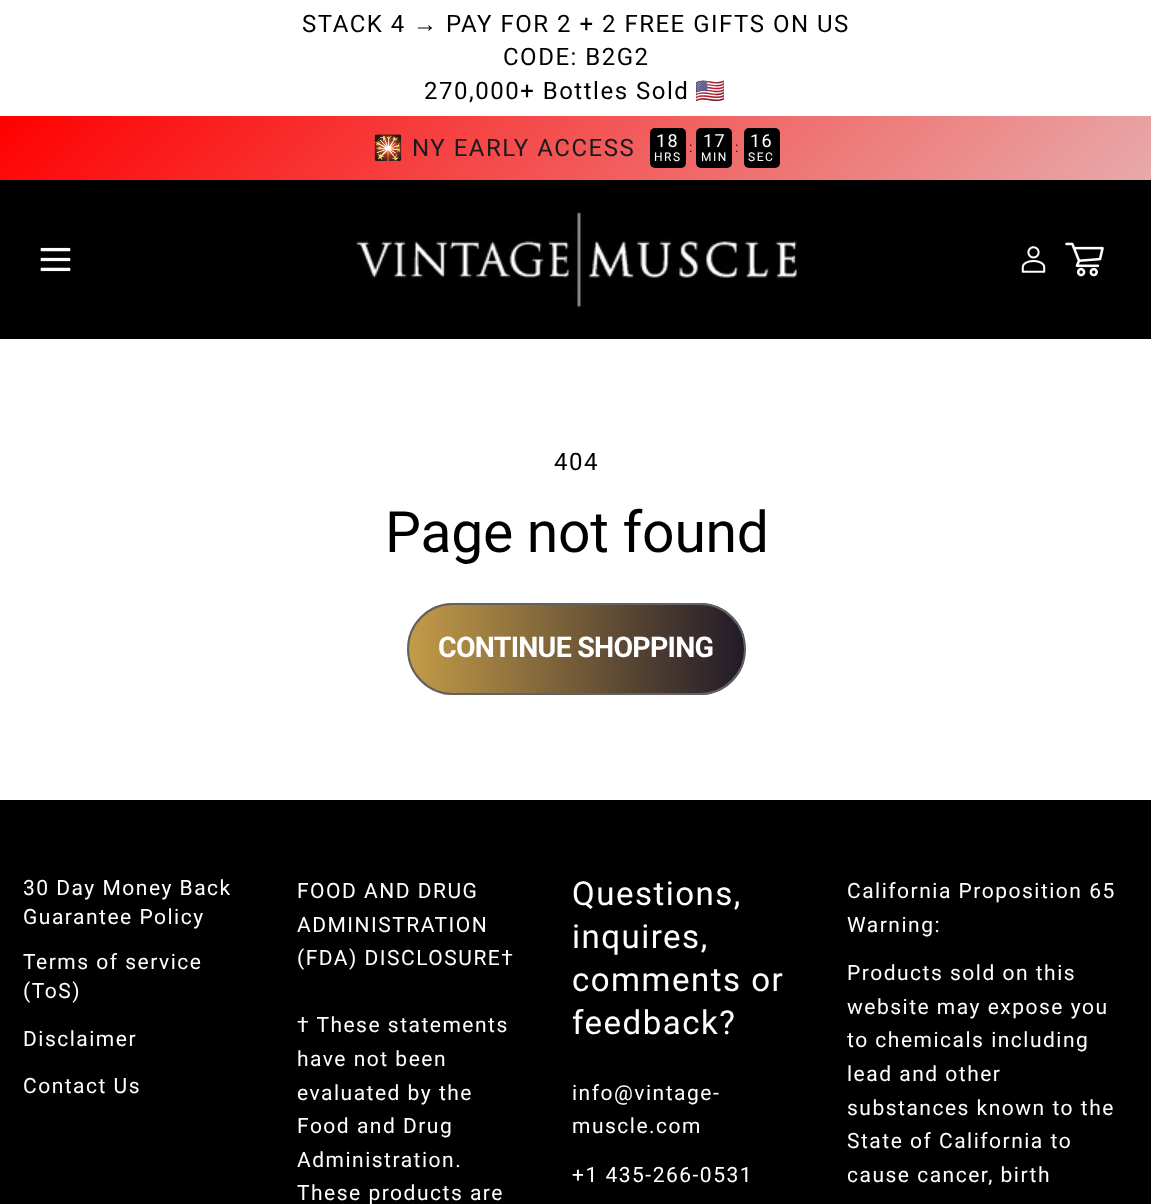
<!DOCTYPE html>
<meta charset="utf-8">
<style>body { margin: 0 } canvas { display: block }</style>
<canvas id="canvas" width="1151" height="1204"></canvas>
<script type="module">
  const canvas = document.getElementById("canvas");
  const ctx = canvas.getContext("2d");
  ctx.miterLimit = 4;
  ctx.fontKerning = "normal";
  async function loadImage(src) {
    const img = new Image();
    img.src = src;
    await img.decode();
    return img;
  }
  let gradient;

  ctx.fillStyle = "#ffffff";
  ctx.fillRect(0, 0, 1151, 1204);
  ctx.letterSpacing = "1.5px";
  ctx.font = "24px Roboto";
  ctx.fillStyle = "#000000";
  ctx.fillText("STACK 4", 302, 32);
  ctx.font = "24px Liberation Sans";
  ctx.fillText("→", 413, 32);
  ctx.font = "24px Roboto";
  ctx.fillText("PAY FOR 2 + 2 FREE GIFTS ON US", 446, 32);
  ctx.fillText("CODE: B2G2", 503, 65);
  ctx.fillText("270,000+ Bottles Sold", 424, 99);
  ctx.font = "24px Noto Color Emoji";
  ctx.fillText("🇺🇸", 695, 99);
  gradient = ctx.createLinearGradient(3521, 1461, 1088, -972);
  gradient.addColorStop(0, "#fdffff");
  gradient.addColorStop(0.33, "#ff0000");
  gradient.addColorStop(0.67, "#e0e0e0");
  gradient.addColorStop(1, "#ff0000");
  ctx.fillStyle = gradient;
  ctx.fillRect(0, 116, 1151, 64);
  ctx.fillStyle = "#181b1d";
  ctx.fillText("🎇", 373, 156);
  ctx.font = "24px Roboto";
  ctx.fillText("NY EARLY ACCESS", 412, 156);
  ctx.fillStyle = "#000000";
  ctx.beginPath();
  ctx.roundRect(650, 128, 36, 40, 5);
  ctx.fill();
  ctx.font = "18px Roboto";
  ctx.fillStyle = "#ffffff";
  ctx.fillText("18", 656, 147);
  ctx.font = "12px Roboto";
  ctx.fillText("HRS", 654, 161);
  ctx.font = "14px Roboto";
  ctx.fillStyle = "#181b1d";
  ctx.fillText(":", 689, 152);
  ctx.fillStyle = "#000000";
  ctx.beginPath();
  ctx.roundRect(696, 128, 36, 40, 5);
  ctx.fill();
  ctx.font = "18px Roboto";
  ctx.fillStyle = "#ffffff";
  ctx.fillText("17", 703, 147);
  ctx.font = "12px Roboto";
  ctx.fillText("MIN", 701, 161);
  ctx.font = "14px Roboto";
  ctx.fillStyle = "#181b1d";
  ctx.fillText(":", 735, 152);
  ctx.fillStyle = "#000000";
  ctx.beginPath();
  ctx.roundRect(744, 128, 36, 40, 5);
  ctx.fill();
  ctx.font = "18px Roboto";
  ctx.fillStyle = "#ffffff";
  ctx.fillText("16", 750, 147);
  ctx.font = "12px Roboto";
  ctx.fillText("SEC", 748, 161);
  ctx.fillStyle = "#000000";
  ctx.fillRect(0, 180, 1151, 159);
  ctx.drawImage(await loadImage("img1.png"), 40, 247, 31, 25);
  ctx.drawImage(await loadImage("img2.png"), 356, 212, 442, 96);
  ctx.drawImage(await loadImage("img3.png"), 1021, 246, 25, 27);
  ctx.drawImage(await loadImage("img4.png"), 1065, 242, 39, 35);
  ctx.font = "24px Roboto";
  ctx.fillText("404", 554, 470);
  ctx.letterSpacing = "-0.25px";
  ctx.font = "57px Roboto";
  ctx.fillText("Page not found", 385, 552);
  ctx.save();
  ctx.beginPath();
  ctx.roundRect(407, 603, 339, 92, 46);
  ctx.clip();
  gradient = ctx.createLinearGradient(744, 649, 408, 649);
  gradient.addColorStop(0, "#211a28");
  gradient.addColorStop(1, "#c49c48");
  ctx.fillStyle = gradient;
  ctx.fillRect(408, 603, 336, 92);
  ctx.restore();
  ctx.beginPath();
  ctx.roundRect(408, 604, 337, 90, 45);
  ctx.strokeStyle = "#616161";
  ctx.lineWidth = 2;
  ctx.stroke();
  ctx.letterSpacing = "-0.75px";
  ctx.font = "bold 28.5px Roboto";
  ctx.fillStyle = "#ffffff";
  ctx.fillText("CONTINUE SHOPPING", 438, 657);
  ctx.fillStyle = "#000000";
  ctx.fillRect(0, 800, 1151, 404);
  ctx.letterSpacing = "1.5px";
  ctx.font = "21px Roboto";
  ctx.fillStyle = "#ffffff";
  ctx.fillText("30 Day Money Back", 23, 895);
  ctx.fillText("Guarantee Policy", 23, 924);
  ctx.fillText("Terms of service", 23, 969);
  ctx.fillText("(ToS)", 23, 998);
  ctx.fillText("Disclaimer", 23, 1046);
  ctx.fillText("Contact Us", 23, 1093);
  ctx.fillText("FOOD AND DRUG", 297, 898);
  ctx.fillText("ADMINISTRATION", 297, 932);
  ctx.fillText("(FDA) DISCLOSURE†", 297, 965);
  ctx.fillText("† These statements", 297, 1032);
  ctx.fillText("have not been", 297, 1066);
  ctx.fillText("evaluated by the", 297, 1100);
  ctx.fillText("Food and Drug", 297, 1133);
  ctx.fillText("Administration.", 297, 1167);
  ctx.fillText("These products are", 297, 1200);
  ctx.font = "33px Roboto";
  ctx.fillText("Questions,", 572, 905);
  ctx.fillText("inquires,", 572, 948);
  ctx.fillText("comments or", 572, 991);
  ctx.fillText("feedback?", 572, 1034);
  ctx.font = "21px Roboto";
  ctx.fillText("info@vintage-", 572, 1100);
  ctx.fillText("muscle.com", 572, 1133);
  ctx.fillText("+1 435-266-0531", 572, 1182);
  ctx.fillText("California Proposition 65", 847, 898);
  ctx.fillText("Warning:", 847, 932);
  ctx.fillText("Products sold on this", 847, 980);
  ctx.fillText("website may expose you", 847, 1014);
  ctx.fillText("to chemicals including", 847, 1047);
  ctx.fillText("lead and other", 847, 1081);
  ctx.fillText("substances known to the", 847, 1115);
  ctx.fillText("State of California to", 847, 1148);
  ctx.fillText("cause cancer, birth", 847, 1182);
</script>
